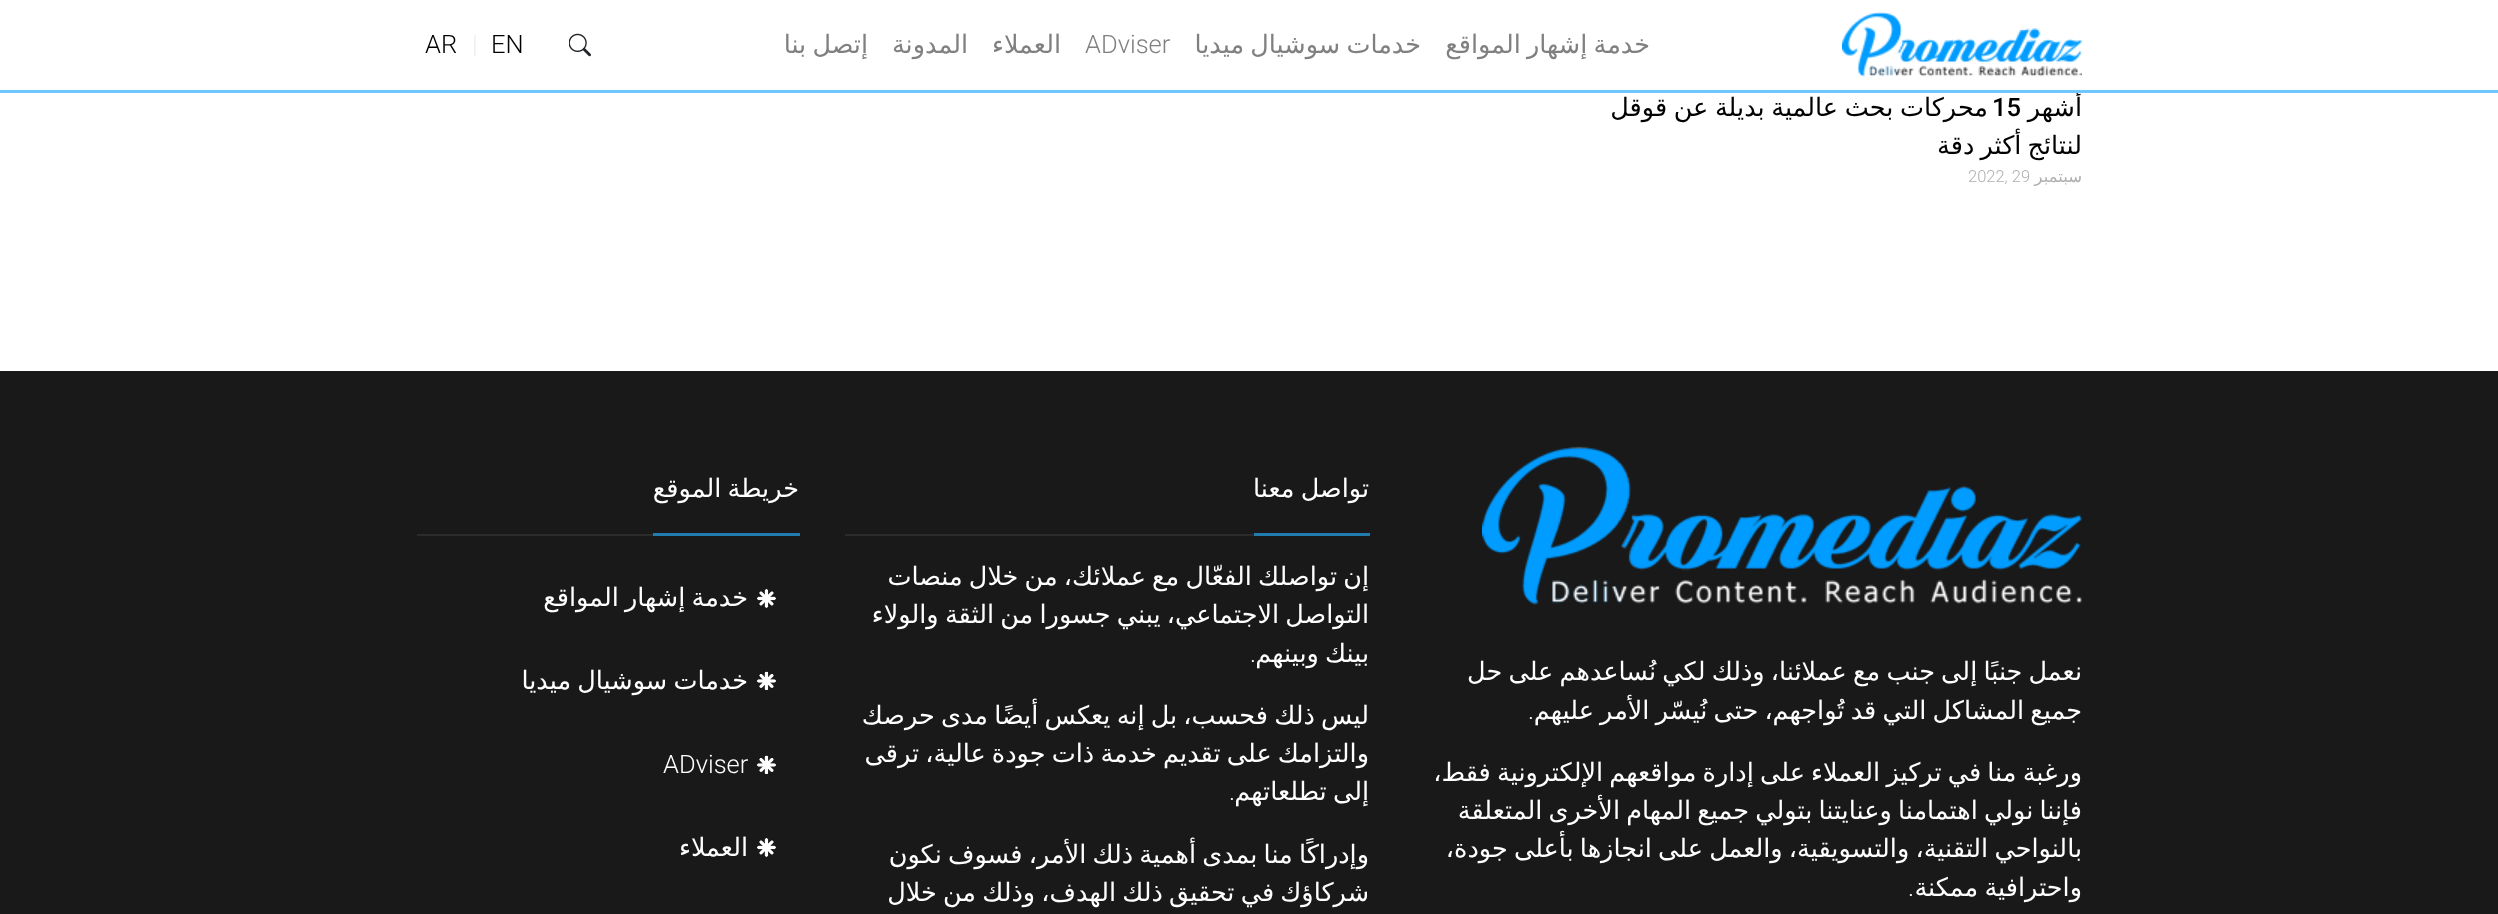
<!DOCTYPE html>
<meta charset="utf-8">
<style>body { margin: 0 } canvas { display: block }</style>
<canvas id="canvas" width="2498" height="914"></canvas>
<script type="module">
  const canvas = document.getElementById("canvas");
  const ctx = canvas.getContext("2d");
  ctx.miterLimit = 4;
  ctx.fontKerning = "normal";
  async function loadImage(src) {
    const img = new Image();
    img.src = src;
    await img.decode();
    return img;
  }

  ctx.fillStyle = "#ffffff";
  ctx.fillRect(0, 0, 2498, 914);
  ctx.direction = "rtl";
  ctx.font = "25.5px DejaVu Sans";
  ctx.fillStyle = "#000000";
  ctx.fillText("أشهر", 2082, 116);
  ctx.fillStyle = "#6ec7ff";
  ctx.fillRect(0, 90, 2498, 3);
  ctx.drawImage(await loadImage("img1.png"), 1842, 12, 240, 65);
  ctx.wordSpacing = "-1.9px";
  ctx.fillStyle = "#808080";
  ctx.fillText("خدمة إشهار المواقع", 1650, 53);
  ctx.fillText("خدمات سوشيال ميديا", 1421, 53);
  ctx.wordSpacing = "0px";
  ctx.direction = "ltr";
  ctx.font = "300 25.5px Roboto";
  ctx.fillText("ADviser", 1085, 53);
  ctx.direction = "rtl";
  ctx.font = "25.5px DejaVu Sans";
  ctx.fillText("العملاء", 1061, 53);
  ctx.fillText("المدونة", 968, 53);
  ctx.wordSpacing = "-1.9px";
  ctx.fillText("إتصل بنا", 868, 53);
  ctx.drawImage(await loadImage("img2.png"), 569, 33, 22, 24);
  ctx.wordSpacing = "0px";
  ctx.direction = "ltr";
  ctx.font = "300 25.5px Roboto";
  ctx.fillStyle = "#000000";
  ctx.fillText("EN", 491, 53);
  ctx.fillStyle = "#ececec";
  ctx.fillText("|", 472, 53);
  ctx.fillStyle = "#000000";
  ctx.fillText("AR", 425, 53);
  ctx.font = "500 25.5px Roboto";
  ctx.fillText("15", 1992, 116);
  ctx.wordSpacing = "-1.5px";
  ctx.direction = "rtl";
  ctx.font = "25.5px DejaVu Sans";
  ctx.fillText("محركات بحث عالمية بديلة عن قوقل", 1988, 116);
  ctx.wordSpacing = "-2px";
  ctx.fillText("لنتائج أكثر دقة", 2082, 154);
  ctx.wordSpacing = "0px";
  ctx.font = "16.5px DejaVu Sans";
  ctx.fillStyle = "#afafaf";
  ctx.fillText("سبتمبر", 2082, 182);
  ctx.direction = "ltr";
  ctx.font = "300 16.5px Roboto";
  ctx.fillText("2022, 29", 1968, 182);
  ctx.fillStyle = "#191919";
  ctx.fillRect(0, 371, 2498, 543);
  ctx.drawImage(await loadImage("img3.png"), 1482, 446, 600, 159);
  ctx.wordSpacing = "-1.9px";
  ctx.direction = "rtl";
  ctx.font = "25.5px DejaVu Sans";
  ctx.fillStyle = "#ffffff";
  ctx.fillText("نعمل جنبًا إلى جنب مع عملائنا، وذلك لكي نُساعدهم على حل", 2082, 680);
  ctx.fillText("جميع المشاكل التي قد تُواجهم، حتى نُيسّر الأمر عليهم", 2082, 719);
  ctx.wordSpacing = "0px";
  ctx.font = "300 25.5px Roboto";
  ctx.fillText(".", 1534, 719);
  ctx.wordSpacing = "-1.9px";
  ctx.font = "25.5px DejaVu Sans";
  ctx.fillText("ورغبة منا في تركيز العملاء على إدارة مواقعهم الإلكترونية فقط،", 2082, 781);
  ctx.fillText("فإننا نولي اهتمامنا وعنايتنا بتولي جميع المهام الأخرى المتعلقة", 2082, 819);
  ctx.fillText("بالنواحي التقنية، والتسويقية، والعمل على انجازها بأعلى جودة،", 2082, 857);
  ctx.fillText("واحترافية ممكنة", 2082, 896);
  ctx.wordSpacing = "0px";
  ctx.font = "300 25.5px Roboto";
  ctx.fillText(".", 1914, 896);
  ctx.fillStyle = "#2b2b2b";
  ctx.fillRect(845, 534, 409, 2);
  ctx.wordSpacing = "-1.9px";
  ctx.font = "25.5px DejaVu Sans";
  ctx.fillStyle = "#ffffff";
  ctx.fillText("تواصل معنا", 1369, 497);
  ctx.fillStyle = "#207baf";
  ctx.fillRect(1254, 533, 116, 3);
  ctx.fillStyle = "#ffffff";
  ctx.fillText("إن تواصلك الفعّال مع عملائك، من خلال منصات", 1369, 585);
  ctx.fillText("التواصل الاجتماعي، يبني جسورا من الثقة والولاء", 1369, 623);
  ctx.fillText("بينك وبينهم", 1369, 662);
  ctx.wordSpacing = "0px";
  ctx.font = "300 25.5px Roboto";
  ctx.fillText(".", 1256, 662);
  ctx.wordSpacing = "-1.9px";
  ctx.font = "25.5px DejaVu Sans";
  ctx.fillText("ليس ذلك فحسب، بل إنه يعكس أيضًا مدى حرصك", 1369, 724);
  ctx.fillText("والتزامك على تقديم خدمة ذات جودة عالية، ترقى", 1369, 762);
  ctx.fillText("إلى تطلعاتهم", 1369, 800);
  ctx.wordSpacing = "0px";
  ctx.font = "300 25.5px Roboto";
  ctx.fillText(".", 1235, 800);
  ctx.wordSpacing = "-1.9px";
  ctx.font = "25.5px DejaVu Sans";
  ctx.fillText("وإدراكًا منا بمدى أهمية ذلك الأمر، فسوف نكون", 1369, 863);
  ctx.fillText("شركاؤك في تحقيق ذلك الهدف، وذلك من خلال", 1369, 901);
  ctx.fillStyle = "#2b2b2b";
  ctx.fillRect(417, 534, 236, 2);
  ctx.fillStyle = "#ffffff";
  ctx.fillText("خريطة الموقع", 799, 497);
  ctx.fillStyle = "#207baf";
  ctx.fillRect(653, 533, 147, 3);
  ctx.drawImage(await loadImage("img4.png"), 757, 589, 19, 19);
  ctx.fillStyle = "#ffffff";
  ctx.fillText("خدمة إشهار المواقع", 748, 606);
  ctx.drawImage(await loadImage("img5.png"), 757, 671, 19, 19);
  ctx.fillText("خدمات سوشيال ميديا", 748, 689);
  ctx.drawImage(await loadImage("img5.png"), 757, 755, 19, 19);
  ctx.wordSpacing = "0px";
  ctx.direction = "ltr";
  ctx.font = "300 25.5px Roboto";
  ctx.fillText("ADviser", 663, 773);
  ctx.drawImage(await loadImage("img4.png"), 757, 838, 19, 19);
  ctx.direction = "rtl";
  ctx.font = "25.5px DejaVu Sans";
  ctx.fillText("العملاء", 748, 856);
</script>
